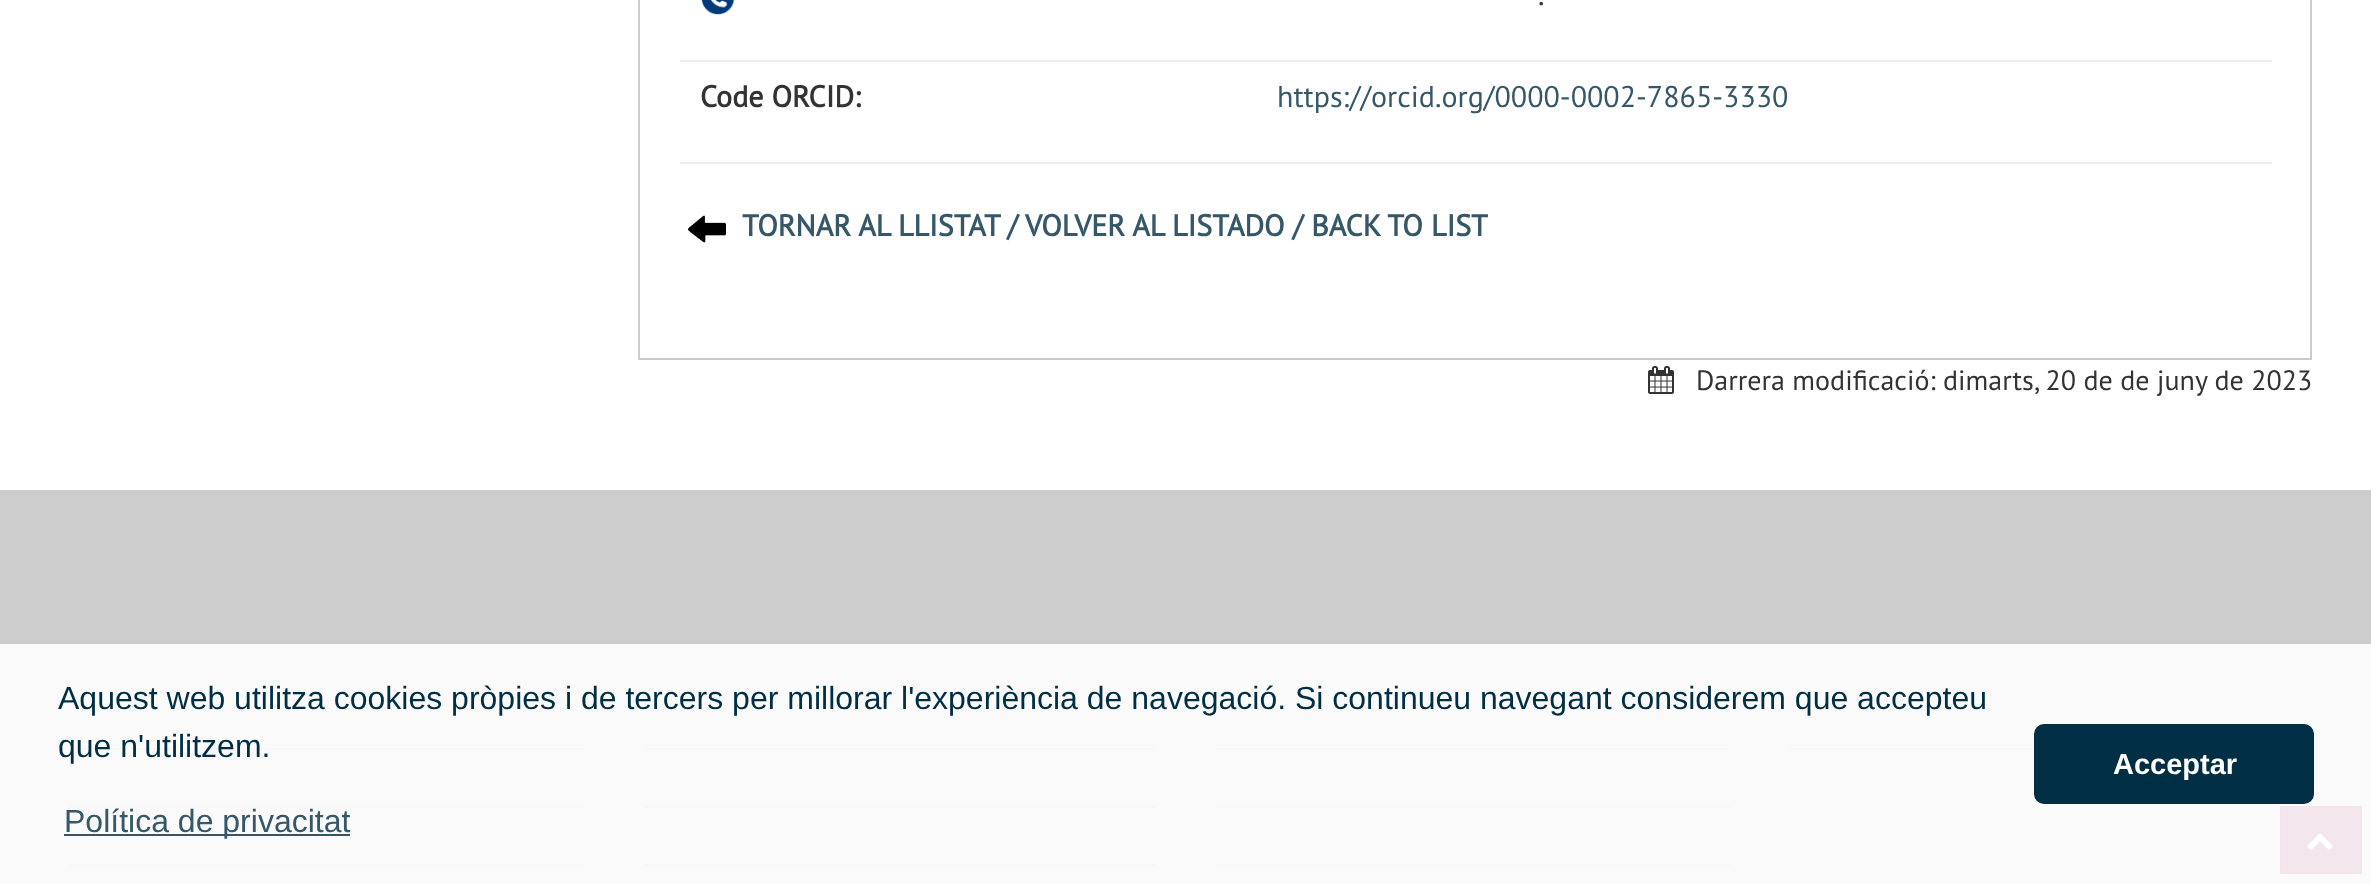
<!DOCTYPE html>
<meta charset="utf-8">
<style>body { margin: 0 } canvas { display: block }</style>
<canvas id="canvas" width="2371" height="884"></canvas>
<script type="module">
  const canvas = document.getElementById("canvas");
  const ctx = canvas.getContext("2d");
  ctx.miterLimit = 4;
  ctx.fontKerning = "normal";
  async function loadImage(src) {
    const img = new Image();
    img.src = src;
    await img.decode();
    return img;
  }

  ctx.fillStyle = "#cccccc";
  ctx.fillRect(0, 0, 2371, 884);
  ctx.fillStyle = "#ffffff";
  ctx.fillRect(0, 0, 2371, 490);
  ctx.strokeStyle = "#cccccc";
  ctx.lineWidth = 2;
  ctx.strokeRect(639, -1, 1672, 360);
  ctx.drawImage(await loadImage("img1.png"), 701, 0, 34, 15);
  ctx.fillStyle = "#eeeeee";
  ctx.fillRect(680, 60, 1592, 2);
  ctx.font = "30px PT Sans";
  ctx.fillStyle = "#333333";
  ctx.fillText(".", 1538, 5);
  ctx.font = "bold 30px PT Sans";
  ctx.fillText("Code ORCID:", 700, 107);
  ctx.fillStyle = "#eeeeee";
  ctx.fillRect(680, 162, 1592, 2);
  ctx.font = "30px PT Sans";
  ctx.fillStyle = "#355767";
  ctx.fillText("https://orcid.org/0000-0002-7865-3330", 1277, 107);
  ctx.drawImage(await loadImage("img2.png"), 688, 215, 38, 28);
  ctx.font = "bold 30px PT Sans";
  ctx.fillText("TORNAR AL LLISTAT / VOLVER AL LISTADO / BACK TO LIST", 742, 236);
  ctx.drawImage(await loadImage("img3.png"), 1648, 366, 26, 28);
  ctx.font = "28px PT Sans";
  ctx.fillStyle = "#333333";
  ctx.fillText("Darrera modificació: dimarts, 20 de de juny de 2023", 1696, 390);
  ctx.fillStyle = "#aaaaaa";
  ctx.fillRect(70, 748, 514, 2);
  ctx.fillRect(70, 806, 514, 2);
  ctx.fillRect(70, 864, 514, 2);
  ctx.fillRect(644, 748, 512, 2);
  ctx.fillRect(644, 806, 512, 2);
  ctx.fillRect(644, 864, 512, 2);
  ctx.fillRect(1216, 748, 514, 2);
  ctx.fillRect(1216, 806, 514, 2);
  ctx.fillRect(1216, 864, 514, 2);
  ctx.fillRect(1790, 748, 244, 2);
  ctx.fillStyle = "#840048";
  ctx.fillRect(2280, 806, 82, 68);
  ctx.fillStyle = "#770041";
  ctx.beginPath();
  ctx.moveTo(2280, 806);
  ctx.lineTo(2362, 806);
  ctx.lineTo(2360, 808);
  ctx.lineTo(2282, 808);
  ctx.closePath();
  ctx.fill();
  ctx.fillStyle = "rgba(0, 0, 0, 0.1)";
  ctx.beginPath();
  ctx.moveTo(2362, 806);
  ctx.lineTo(2362, 874);
  ctx.lineTo(2360, 872);
  ctx.lineTo(2360, 808);
  ctx.closePath();
  ctx.fill();
  ctx.fillStyle = "rgba(0, 0, 0, 0.25)";
  ctx.beginPath();
  ctx.moveTo(2362, 874);
  ctx.lineTo(2280, 874);
  ctx.lineTo(2282, 872);
  ctx.lineTo(2360, 872);
  ctx.closePath();
  ctx.fill();
  ctx.fillStyle = "rgba(0, 0, 0, 0.1)";
  ctx.beginPath();
  ctx.moveTo(2280, 874);
  ctx.lineTo(2280, 806);
  ctx.lineTo(2282, 808);
  ctx.lineTo(2282, 872);
  ctx.closePath();
  ctx.fill();
  ctx.drawImage(await loadImage("img4.png"), 2307, 833, 26, 17);
  ctx.fillStyle = "rgba(255, 255, 255, 0.9)";
  ctx.fillRect(0, 644, 2371, 240);
  ctx.font = "32px Liberation Sans";
  ctx.fillStyle = "#002e45";
  ctx.fillText("Aquest web utilitza cookies pròpies i de tercers per millorar l'experiència de navegació. Si continueu navegant considerem que accepteu", 58, 709);
  ctx.fillText("que n'utilitzem.", 58, 757);
  ctx.fillStyle = "rgba(0, 46, 69, 0.8)";
  ctx.fillRect(64, 834, 286, 2);
  ctx.fillStyle = "#355767";
  ctx.fillText("Política de privacitat", 64, 832);
  ctx.fillStyle = "#002e45";
  ctx.beginPath();
  ctx.roundRect(2034, 724, 280, 80, 10);
  ctx.fill();
  ctx.font = "bold 29px Liberation Sans";
  ctx.fillStyle = "#ffffff";
  ctx.fillText("Acceptar", 2113, 774);
</script>
